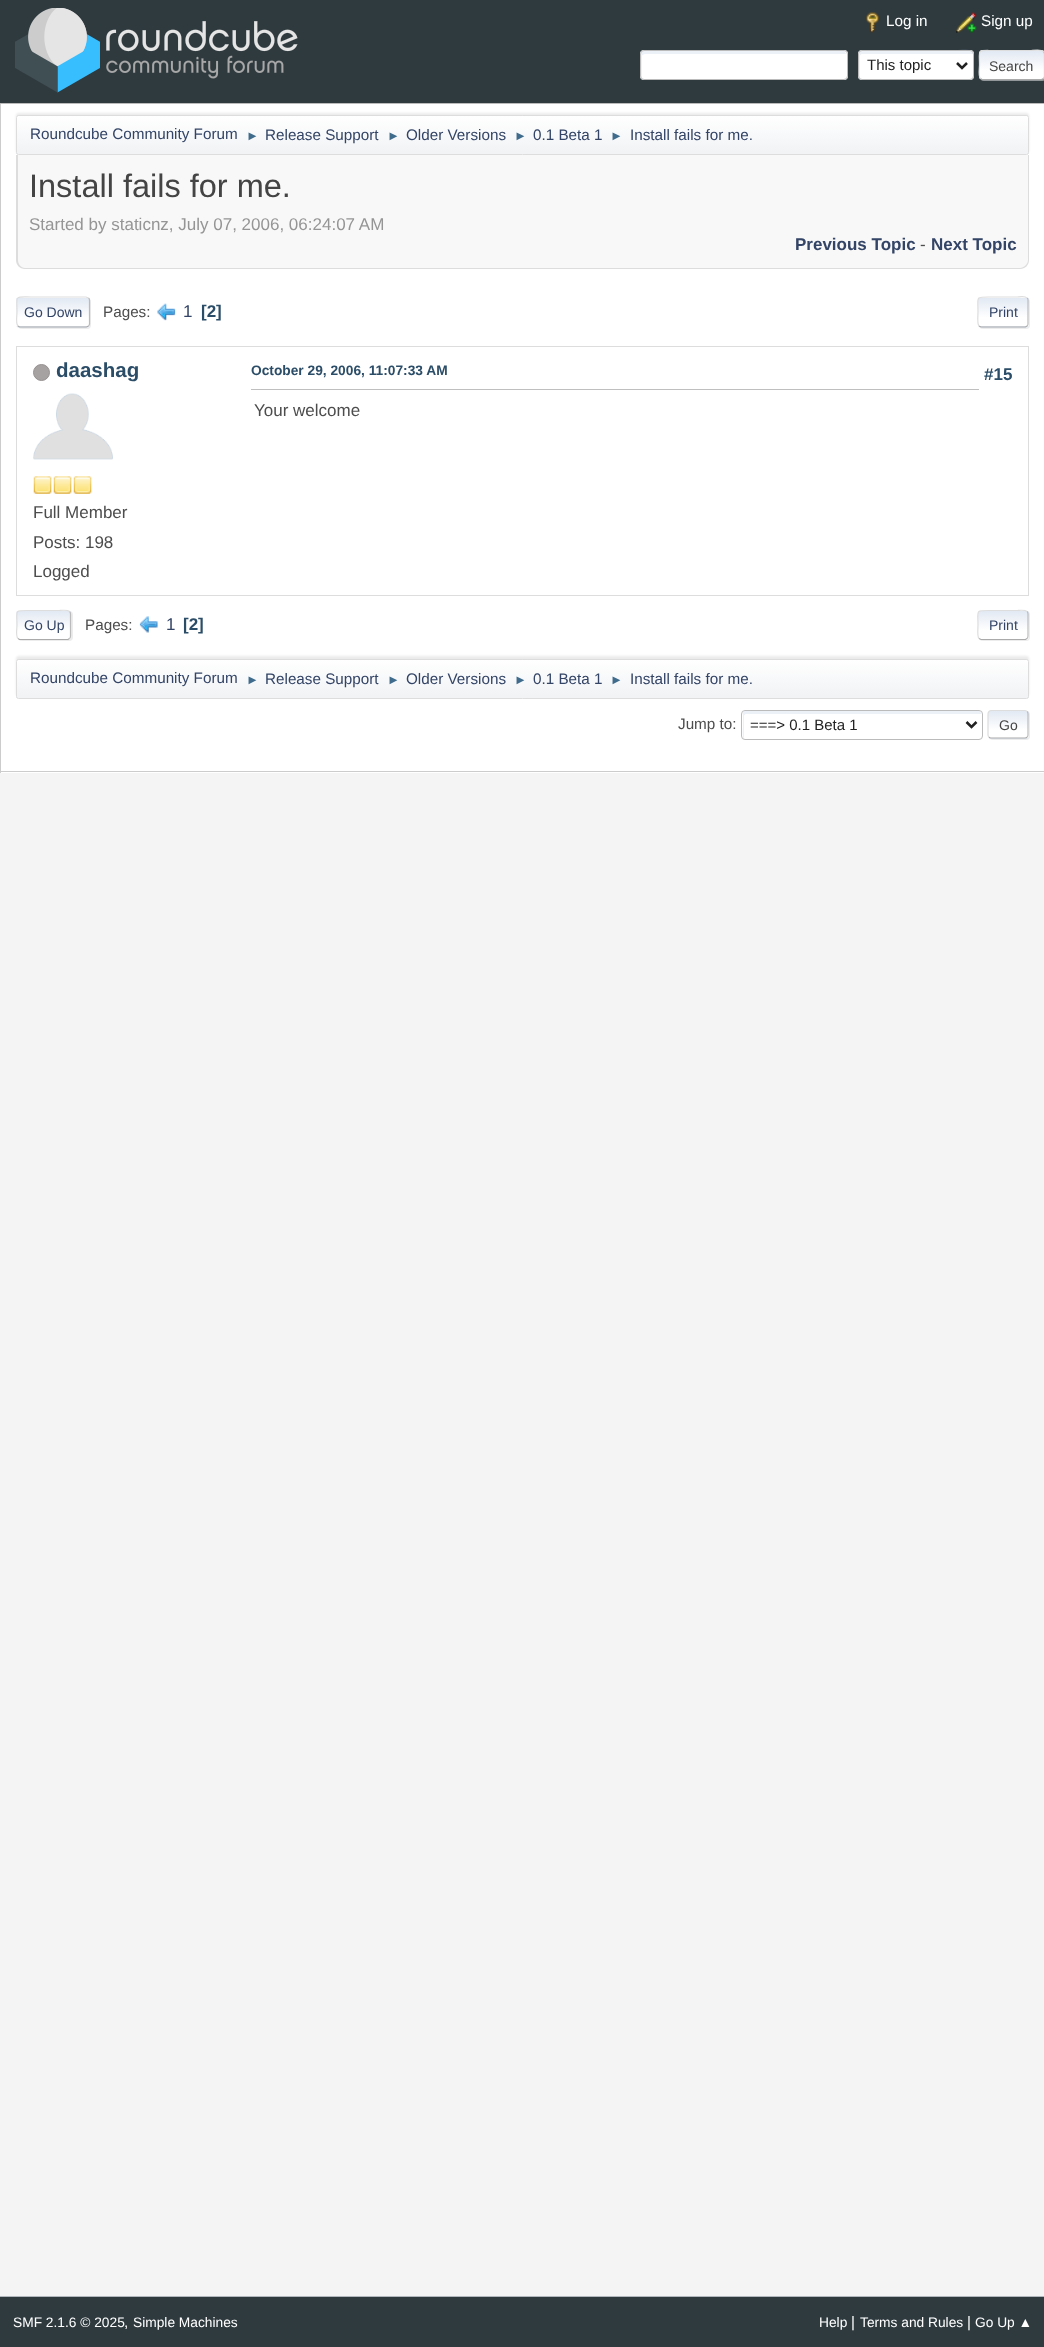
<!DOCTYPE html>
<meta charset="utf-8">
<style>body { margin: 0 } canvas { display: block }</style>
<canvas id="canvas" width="1044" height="2347"></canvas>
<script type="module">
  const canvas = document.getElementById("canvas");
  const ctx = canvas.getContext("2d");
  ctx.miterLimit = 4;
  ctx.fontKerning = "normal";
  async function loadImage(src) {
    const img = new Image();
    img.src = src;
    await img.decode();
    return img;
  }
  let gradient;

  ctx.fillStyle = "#f4f4f4";
  ctx.fillRect(0, 0, 1044, 2347);
  ctx.fillStyle = "#2f3a3f";
  ctx.fillRect(0, 0, 1044, 103);
  ctx.fillStyle = "#bbbbbb";
  ctx.fillRect(0, 103, 1044, 1);
  ctx.drawImage(await loadImage("img1.png"), 15, 8, 283, 85);
  ctx.drawImage(await loadImage("img2.png"), 866, 12, 13, 21);
  ctx.font = "15.25px Liberation Sans";
  ctx.fillStyle = "#ffffff";
  ctx.fillText("Log in", 886, 26);
  ctx.drawImage(await loadImage("img3.png"), 956, 12, 21, 21);
  ctx.fillText("Sign up", 981, 26);
  ctx.beginPath();
  ctx.roundRect(640, 50, 208, 30, 4);
  ctx.fill();
  ctx.fillStyle = "#ecf1f8";
  ctx.beginPath();
  ctx.moveTo(645, 54);
  ctx.lineTo(846, 54);
  ctx.lineTo(845, 52);
  ctx.lineTo(844, 51);
  ctx.lineTo(644, 51);
  ctx.bezierCurveTo(640, 51, 641, 55, 641, 57);
  ctx.lineTo(641, 65);
  ctx.bezierCurveTo(641, 67, 640, 77, 642, 79);
  ctx.lineTo(642, 56);
  ctx.bezierCurveTo(642, 55, 644, 54, 645, 54);
  ctx.closePath();
  ctx.fill();
  ctx.beginPath();
  ctx.roundRect(640.5, 50.5, 207, 29, 3.5);
  ctx.strokeStyle = "#bbbbbb";
  ctx.stroke();
  ctx.fillStyle = "#ffffff";
  ctx.beginPath();
  ctx.roundRect(858, 50, 116, 30, 4);
  ctx.fill();
  ctx.fillStyle = "rgba(160, 187, 221, 0.2)";
  ctx.beginPath();
  ctx.moveTo(862, 54);
  ctx.lineTo(971, 54);
  ctx.lineTo(973, 54);
  ctx.bezierCurveTo(973, 46, 953, 51, 952, 51);
  ctx.lineTo(880, 51);
  ctx.bezierCurveTo(857, 51, 859, 46, 859, 65);
  ctx.bezierCurveTo(859, 67, 858, 77, 860, 79);
  ctx.lineTo(860, 56);
  ctx.bezierCurveTo(860, 55, 861, 54, 862, 54);
  ctx.closePath();
  ctx.fill();
  ctx.beginPath();
  ctx.roundRect(858.5, 50.5, 115, 29, 3.5);
  ctx.stroke();
  ctx.beginPath();
  ctx.moveTo(957, 63);
  ctx.lineTo(962, 68);
  ctx.lineTo(967, 63);
  ctx.strokeStyle = "#222222";
  ctx.lineWidth = 2.5;
  ctx.stroke();
  ctx.font = "15px Liberation Sans";
  ctx.fillStyle = "#222222";
  ctx.fillText("This topic", 867, 70);
  ctx.fillStyle = "rgba(221, 221, 221, 0.57)";
  ctx.filter = "blur(0.5px)";
  ctx.beginPath();
  ctx.roundRect(980, 51, 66, 30, 4);
  ctx.fill();
  ctx.filter = "none";
  ctx.save();
  ctx.beginPath();
  ctx.roundRect(979, 50, 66, 30, 4);
  ctx.clip();
  gradient = ctx.createLinearGradient(1012, 24, 1012, 51);
  gradient.addColorStop(0, "#e2e9f3");
  gradient.addColorStop(0.7, "#ffffff");
  ctx.fillStyle = gradient;
  ctx.fillRect(979, 50, 65, 1);
  gradient = ctx.createLinearGradient(1012, 51, 1012, 79);
  gradient.addColorStop(0, "#e2e9f3");
  gradient.addColorStop(0.7, "#ffffff");
  ctx.fillStyle = gradient;
  ctx.fillRect(979, 51, 65, 28);
  ctx.restore();
  ctx.beginPath();
  ctx.moveTo(1043.5, 51.5);
  ctx.bezierCurveTo(1044, 52, 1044.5, 53, 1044.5, 54);
  ctx.lineTo(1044.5, 76);
  ctx.bezierCurveTo(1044.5, 77, 1044, 78, 1043.5, 78.5);
  ctx.strokeStyle = "#bbbbbb";
  ctx.lineWidth = 1.2;
  ctx.stroke();
  ctx.beginPath();
  ctx.moveTo(1043.5, 78.5);
  ctx.lineTo(1041.5, 79.5);
  ctx.lineTo(982, 79.5);
  ctx.lineTo(980.5, 78.5);
  ctx.strokeStyle = "#aaaaaa";
  ctx.stroke();
  ctx.beginPath();
  ctx.moveTo(980.5, 78.5);
  ctx.bezierCurveTo(978, 76.5, 979.5, 67.5, 979.5, 65);
  ctx.bezierCurveTo(979.5, 49, 976.5, 50.5, 992.5, 50.5);
  ctx.lineTo(1031.5, 50.5);
  ctx.bezierCurveTo(1032, 50.5, 1041, 49, 1043.5, 51.5);
  ctx.strokeStyle = "#dddddd";
  ctx.stroke();
  ctx.font = "14px Liberation Sans";
  ctx.fillStyle = "#444444";
  ctx.fillText("Search", 989, 71);
  ctx.fillStyle = "#ffffff";
  ctx.fillRect(1, 104, 1043, 669);
  ctx.fillStyle = "#cccccc";
  ctx.fillRect(0, 771, 1044, 1);
  ctx.fillRect(0, 104, 1, 669);
  ctx.fillStyle = "rgba(0, 0, 0, 0.08)";
  ctx.filter = "blur(1px)";
  ctx.beginPath();
  ctx.roundRect(16, 113, 1013, 40, 2.5);
  ctx.fill();
  ctx.filter = "none";
  ctx.save();
  ctx.beginPath();
  ctx.roundRect(16, 115, 1013, 40, 2.5);
  ctx.clip();
  gradient = ctx.createLinearGradient(523, 116, 523, 154);
  gradient.addColorStop(0, "#ffffff");
  gradient.addColorStop(0.95, "#f1f3f5");
  ctx.fillStyle = gradient;
  ctx.fillRect(16, 116, 1013, 38);
  ctx.restore();
  ctx.beginPath();
  ctx.roundRect(16.5, 115.5, 1012, 39, 2);
  ctx.lineWidth = 1;
  ctx.stroke();
  ctx.font = "15.25px Liberation Sans";
  ctx.fillStyle = "#334466";
  ctx.fillText("Roundcube Community Forum", 30, 139);
  ctx.font = "13px Liberation Sans";
  ctx.fillStyle = "#3f6b8c";
  ctx.fillText("►", 246, 140);
  ctx.font = "15.25px Liberation Sans";
  ctx.fillStyle = "#334466";
  ctx.fillText("Release Support", 265, 140);
  ctx.font = "13px Liberation Sans";
  ctx.fillStyle = "#3f6b8c";
  ctx.fillText("►", 387, 140);
  ctx.font = "15.25px Liberation Sans";
  ctx.fillStyle = "#334466";
  ctx.fillText("Older Versions", 406, 140);
  ctx.font = "13px Liberation Sans";
  ctx.fillStyle = "#3f6b8c";
  ctx.fillText("►", 514, 140);
  ctx.font = "15.25px Liberation Sans";
  ctx.fillStyle = "#334466";
  ctx.fillText("0.1 Beta 1", 533, 140);
  ctx.font = "13px Liberation Sans";
  ctx.fillStyle = "#3f6b8c";
  ctx.fillText("►", 610, 140);
  ctx.font = "15.25px Liberation Sans";
  ctx.fillStyle = "#334466";
  ctx.fillText("Install fails for me.", 630, 140);
  ctx.fillStyle = "#f8f8f8";
  ctx.beginPath();
  ctx.roundRect(16, 155, 1013, 114, [0, 0, 9, 9]);
  ctx.fill();
  ctx.fillStyle = "#dddddd";
  ctx.beginPath();
  ctx.moveTo(16, 155);
  ctx.lineTo(1029, 155);
  ctx.lineTo(1029, 260);
  ctx.bezierCurveTo(1029, 265, 1025, 269, 1020, 269);
  ctx.lineTo(25, 269);
  ctx.bezierCurveTo(20, 269, 16, 265, 16, 260);
  ctx.closePath();
  ctx.moveTo(18, 155);
  ctx.lineTo(1028, 155);
  ctx.lineTo(1028, 260);
  ctx.bezierCurveTo(1028, 264, 1024, 268, 1020, 268);
  ctx.lineTo(25, 268);
  ctx.bezierCurveTo(21, 268, 18, 264, 18, 260);
  ctx.closePath();
  ctx.fill("evenodd");
  ctx.font = "32.5px Liberation Sans";
  ctx.fillStyle = "#444444";
  ctx.fillText("Install fails for me.", 29, 197);
  ctx.font = "17px Liberation Sans";
  ctx.fillStyle = "#959595";
  ctx.fillText("Started by staticnz, July 07, 2006, 06:24:07 AM", 29, 230);
  ctx.font = "bold 17px Liberation Sans";
  ctx.fillStyle = "#334466";
  ctx.fillText("Previous Topic", 795, 250);
  ctx.font = "17px Liberation Sans";
  ctx.fillStyle = "#4d4d4d";
  ctx.fillText("-", 920, 250);
  ctx.font = "bold 17px Liberation Sans";
  ctx.fillStyle = "#334466";
  ctx.fillText("Next Topic", 931, 250);
  ctx.fillStyle = "rgba(221, 221, 221, 0.57)";
  ctx.filter = "blur(0.5px)";
  ctx.beginPath();
  ctx.roundRect(18, 298, 73, 31, 4);
  ctx.fill();
  ctx.filter = "none";
  ctx.fillStyle = "#ffffff";
  ctx.beginPath();
  ctx.roundRect(16, 296, 74, 32, 4);
  ctx.fill();
  ctx.save();
  ctx.beginPath();
  ctx.roundRect(16, 296, 74, 32, 4);
  ctx.clip();
  gradient = ctx.createLinearGradient(53, 298, 53, 326);
  gradient.addColorStop(0, "#e2e9f3");
  gradient.addColorStop(0.7, "#ffffff");
  ctx.fillStyle = gradient;
  ctx.fillRect(16, 298, 74, 28);
  gradient = ctx.createLinearGradient(53, 326, 53, 355);
  gradient.addColorStop(0, "#e2e9f3");
  gradient.addColorStop(0.7, "#ffffff");
  ctx.fillStyle = gradient;
  ctx.fillRect(16, 326, 74, 2);
  ctx.restore();
  ctx.beginPath();
  ctx.moveTo(88.5, 298);
  ctx.bezierCurveTo(89, 298.5, 89.5, 299, 89.5, 300);
  ctx.lineTo(89.5, 324);
  ctx.bezierCurveTo(89.5, 324.5, 89, 325.5, 88.5, 326);
  ctx.strokeStyle = "#bbbbbb";
  ctx.lineWidth = 1.2;
  ctx.stroke();
  ctx.beginPath();
  ctx.moveTo(88.5, 326);
  ctx.lineTo(86.5, 327);
  ctx.lineTo(19.5, 327);
  ctx.lineTo(18, 326);
  ctx.strokeStyle = "#aaaaaa";
  ctx.stroke();
  ctx.beginPath();
  ctx.moveTo(18, 326);
  ctx.bezierCurveTo(15.5, 324, 17, 314.5, 17, 312);
  ctx.bezierCurveTo(17, 295, 14, 297, 31, 297);
  ctx.lineTo(86, 297);
  ctx.lineTo(88.5, 298);
  ctx.strokeStyle = "#dddddd";
  ctx.stroke();
  ctx.font = "14px Liberation Sans";
  ctx.fillStyle = "#334466";
  ctx.fillText("Go Down", 24, 317);
  ctx.font = "15.25px Liberation Sans";
  ctx.fillStyle = "#4d4d4d";
  ctx.fillText("Pages:", 103, 317);
  ctx.drawImage(await loadImage("img4.png"), 157, 303, 19, 18);
  ctx.font = "17px Liberation Sans";
  ctx.fillStyle = "#334466";
  ctx.fillText("1", 183, 317);
  ctx.font = "bold 17px Liberation Sans";
  ctx.fillStyle = "#2c4d67";
  ctx.fillText("[2]", 201, 317);
  ctx.fillStyle = "rgba(221, 221, 221, 0.57)";
  ctx.filter = "blur(0.5px)";
  ctx.beginPath();
  ctx.roundRect(979, 298, 51, 31, 4);
  ctx.fill();
  ctx.filter = "none";
  ctx.fillStyle = "#ffffff";
  ctx.beginPath();
  ctx.roundRect(978, 296, 51, 32, 4);
  ctx.fill();
  ctx.save();
  ctx.beginPath();
  ctx.roundRect(978, 296, 51, 32, 4);
  ctx.clip();
  gradient = ctx.createLinearGradient(1003, 298, 1003, 326);
  gradient.addColorStop(0, "#e2e9f3");
  gradient.addColorStop(0.7, "#ffffff");
  ctx.fillStyle = gradient;
  ctx.fillRect(978, 298, 51, 28);
  gradient = ctx.createLinearGradient(1003, 326, 1003, 355);
  gradient.addColorStop(0, "#e2e9f3");
  gradient.addColorStop(0.7, "#ffffff");
  ctx.fillStyle = gradient;
  ctx.fillRect(978, 326, 51, 2);
  ctx.restore();
  ctx.beginPath();
  ctx.moveTo(1027, 298);
  ctx.bezierCurveTo(1028, 298.5, 1028, 299, 1028, 300);
  ctx.lineTo(1028, 324);
  ctx.bezierCurveTo(1028, 324.5, 1028, 325.5, 1027, 326);
  ctx.strokeStyle = "#bbbbbb";
  ctx.stroke();
  ctx.beginPath();
  ctx.moveTo(1027, 326);
  ctx.lineTo(1025.5, 327);
  ctx.lineTo(981, 327);
  ctx.lineTo(979, 326);
  ctx.strokeStyle = "#aaaaaa";
  ctx.stroke();
  ctx.beginPath();
  ctx.moveTo(979, 326);
  ctx.bezierCurveTo(977, 324, 978, 314.5, 978, 312);
  ctx.bezierCurveTo(978, 297, 975, 297, 988.5, 297);
  ctx.lineTo(1017.5, 297);
  ctx.bezierCurveTo(1018.5, 297, 1025, 295.5, 1027, 298);
  ctx.strokeStyle = "#dddddd";
  ctx.stroke();
  ctx.font = "14px Liberation Sans";
  ctx.fillStyle = "#334466";
  ctx.fillText("Print", 989, 317);
  ctx.lineWidth = 1;
  ctx.strokeRect(16.5, 346.5, 1012, 249);
  ctx.fillStyle = "#a7a2a2";
  ctx.beginPath();
  ctx.arc(41.5, 372.5, 8, 0, Math.PI * 2);
  ctx.fill();
  ctx.strokeStyle = "#969292";
  ctx.stroke();
  ctx.font = "bold 20.5px Liberation Sans";
  ctx.fillStyle = "#2c4d67";
  ctx.fillText("daashag", 56, 377);
  ctx.drawImage(await loadImage("img5.png"), 33, 393, 80, 67);
  ctx.drawImage(await loadImage("img6.png"), 33, 476, 19, 18);
  ctx.drawImage(await loadImage("img7.png"), 53, 476, 19, 18);
  ctx.drawImage(await loadImage("img7.png"), 73, 476, 19, 18);
  ctx.font = "17px Liberation Sans";
  ctx.fillStyle = "#4d4d4d";
  ctx.fillText("Full Member", 33, 518);
  ctx.fillText("Posts: 198", 33, 548);
  ctx.fillText("Logged", 33, 577);
  ctx.font = "bold 13.75px Liberation Sans";
  ctx.fillStyle = "#2c4d67";
  ctx.fillText("October 29, 2006, 11:07:33 AM", 251, 375);
  ctx.font = "bold 17px Liberation Sans";
  ctx.fillText("#15", 984, 380);
  ctx.fillStyle = "#bfbfbf";
  ctx.fillRect(251, 389, 728, 1);
  ctx.font = "17px Liberation Sans";
  ctx.fillStyle = "#4d4d4d";
  ctx.fillText("Your welcome", 254, 416);
  ctx.fillStyle = "rgba(221, 221, 221, 0.57)";
  ctx.filter = "blur(0.5px)";
  ctx.beginPath();
  ctx.roundRect(18, 611, 55, 30, 4);
  ctx.fill();
  ctx.filter = "none";
  ctx.fillStyle = "#ffffff";
  ctx.beginPath();
  ctx.roundRect(16, 610, 55, 30, 4);
  ctx.fill();
  ctx.save();
  ctx.beginPath();
  ctx.roundRect(16, 610, 55, 30, 4);
  ctx.clip();
  gradient = ctx.createLinearGradient(44, 611, 44, 639);
  gradient.addColorStop(0, "#e2e9f3");
  gradient.addColorStop(0.7, "#ffffff");
  ctx.fillStyle = gradient;
  ctx.fillRect(16, 611, 55, 28);
  ctx.restore();
  ctx.beginPath();
  ctx.moveTo(69.5, 611.5);
  ctx.bezierCurveTo(70.5, 612, 70.5, 613, 70.5, 614);
  ctx.lineTo(70.5, 636);
  ctx.bezierCurveTo(70.5, 637, 70.5, 638, 69.5, 638.5);
  ctx.strokeStyle = "#bbbbbb";
  ctx.lineWidth = 1.2;
  ctx.stroke();
  ctx.beginPath();
  ctx.moveTo(69.5, 638.5);
  ctx.lineTo(68, 639.5);
  ctx.lineTo(19.5, 639.5);
  ctx.lineTo(18, 638.5);
  ctx.strokeStyle = "#aaaaaa";
  ctx.stroke();
  ctx.beginPath();
  ctx.moveTo(18, 638.5);
  ctx.bezierCurveTo(15.5, 636.5, 17, 627.5, 17, 625);
  ctx.bezierCurveTo(17, 610, 14, 610.5, 28, 610.5);
  ctx.lineTo(59.5, 610.5);
  ctx.bezierCurveTo(60, 610.5, 67.5, 609.5, 69.5, 611.5);
  ctx.strokeStyle = "#dddddd";
  ctx.stroke();
  ctx.font = "14px Liberation Sans";
  ctx.fillStyle = "#334466";
  ctx.fillText("Go Up", 24, 630);
  ctx.font = "15.25px Liberation Sans";
  ctx.fillStyle = "#4d4d4d";
  ctx.fillText("Pages:", 85, 630);
  ctx.drawImage(await loadImage("img8.png"), 139, 616, 19, 17);
  ctx.font = "17px Liberation Sans";
  ctx.fillStyle = "#334466";
  ctx.fillText("1", 166, 630);
  ctx.font = "bold 17px Liberation Sans";
  ctx.fillStyle = "#2c4d67";
  ctx.fillText("[2]", 183, 630);
  ctx.save();
  ctx.beginPath();
  ctx.moveTo(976, 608);
  ctx.lineTo(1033, 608);
  ctx.lineTo(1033, 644);
  ctx.lineTo(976, 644);
  ctx.closePath();
  ctx.moveTo(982, 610);
  ctx.lineTo(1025, 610);
  ctx.bezierCurveTo(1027, 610, 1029, 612, 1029, 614);
  ctx.lineTo(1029, 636);
  ctx.bezierCurveTo(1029, 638, 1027, 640, 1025, 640);
  ctx.lineTo(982, 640);
  ctx.bezierCurveTo(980, 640, 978, 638, 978, 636);
  ctx.lineTo(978, 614);
  ctx.bezierCurveTo(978, 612, 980, 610, 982, 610);
  ctx.closePath();
  ctx.clip("evenodd");
  ctx.fillStyle = "rgba(221, 221, 221, 0.57)";
  ctx.filter = "blur(0.5px)";
  ctx.beginPath();
  ctx.roundRect(979, 611, 51, 30, 4);
  ctx.fill();
  ctx.filter = "none";
  ctx.restore();
  ctx.fillStyle = "#ffffff";
  ctx.beginPath();
  ctx.roundRect(978, 610, 51, 30, 4);
  ctx.fill();
  ctx.save();
  ctx.beginPath();
  ctx.roundRect(978, 610, 51, 30, 4);
  ctx.clip();
  gradient = ctx.createLinearGradient(1003, 611, 1003, 639);
  gradient.addColorStop(0, "#e2e9f3");
  gradient.addColorStop(0.7, "#ffffff");
  ctx.fillStyle = gradient;
  ctx.fillRect(978, 611, 51, 28);
  ctx.restore();
  ctx.beginPath();
  ctx.moveTo(1027, 611.5);
  ctx.bezierCurveTo(1028, 612, 1028, 613, 1028, 614);
  ctx.lineTo(1028, 636);
  ctx.bezierCurveTo(1028, 637, 1028, 638, 1027, 638.5);
  ctx.strokeStyle = "#bbbbbb";
  ctx.stroke();
  ctx.beginPath();
  ctx.moveTo(1027, 638.5);
  ctx.lineTo(1025.5, 639.5);
  ctx.lineTo(981, 639.5);
  ctx.lineTo(979, 638.5);
  ctx.strokeStyle = "#aaaaaa";
  ctx.stroke();
  ctx.beginPath();
  ctx.moveTo(979, 638.5);
  ctx.bezierCurveTo(977, 636.5, 978, 627.5, 978, 625);
  ctx.bezierCurveTo(978, 610.5, 975, 610.5, 988.5, 610.5);
  ctx.lineTo(1017.5, 610.5);
  ctx.bezierCurveTo(1018.5, 610.5, 1025, 609.5, 1027, 611.5);
  ctx.strokeStyle = "#dddddd";
  ctx.stroke();
  ctx.font = "14px Liberation Sans";
  ctx.fillStyle = "#334466";
  ctx.fillText("Print", 989, 630);
  ctx.fillStyle = "rgba(0, 0, 0, 0.08)";
  ctx.filter = "blur(1px)";
  ctx.beginPath();
  ctx.roundRect(16, 656, 1013, 40, 2.5);
  ctx.fill();
  ctx.filter = "none";
  ctx.save();
  ctx.beginPath();
  ctx.roundRect(16, 659, 1013, 40, 2.5);
  ctx.clip();
  gradient = ctx.createLinearGradient(523, 660, 523, 698);
  gradient.addColorStop(0, "#ffffff");
  gradient.addColorStop(0.95, "#f1f3f5");
  ctx.fillStyle = gradient;
  ctx.fillRect(16, 660, 1013, 38);
  ctx.restore();
  ctx.beginPath();
  ctx.roundRect(16.5, 659.5, 1012, 39, 2);
  ctx.lineWidth = 1;
  ctx.stroke();
  ctx.font = "15.25px Liberation Sans";
  ctx.fillStyle = "#334466";
  ctx.fillText("Roundcube Community Forum", 30, 683);
  ctx.font = "13px Liberation Sans";
  ctx.fillStyle = "#3f6b8c";
  ctx.fillText("►", 246, 684);
  ctx.font = "15.25px Liberation Sans";
  ctx.fillStyle = "#334466";
  ctx.fillText("Release Support", 265, 684);
  ctx.font = "13px Liberation Sans";
  ctx.fillStyle = "#3f6b8c";
  ctx.fillText("►", 387, 684);
  ctx.font = "15.25px Liberation Sans";
  ctx.fillStyle = "#334466";
  ctx.fillText("Older Versions", 406, 684);
  ctx.font = "13px Liberation Sans";
  ctx.fillStyle = "#3f6b8c";
  ctx.fillText("►", 514, 684);
  ctx.font = "15.25px Liberation Sans";
  ctx.fillStyle = "#334466";
  ctx.fillText("0.1 Beta 1", 533, 684);
  ctx.font = "13px Liberation Sans";
  ctx.fillStyle = "#3f6b8c";
  ctx.fillText("►", 610, 684);
  ctx.font = "15.25px Liberation Sans";
  ctx.fillStyle = "#334466";
  ctx.fillText("Install fails for me.", 630, 684);
  ctx.fillStyle = "#4d4d4d";
  ctx.fillText("Jump to:", 678, 729);
  ctx.fillStyle = "#ecf1f8";
  ctx.beginPath();
  ctx.moveTo(746, 714);
  ctx.lineTo(981, 714);
  ctx.bezierCurveTo(981, 713, 981, 712, 979, 711);
  ctx.lineTo(746, 711);
  ctx.bezierCurveTo(742, 711, 743, 715, 743, 717);
  ctx.lineTo(743, 725);
  ctx.bezierCurveTo(743, 727, 742, 737, 744, 739);
  ctx.lineTo(744, 716);
  ctx.bezierCurveTo(744, 715, 745, 714, 746, 714);
  ctx.closePath();
  ctx.fill();
  ctx.beginPath();
  ctx.roundRect(741.5, 710.5, 241, 29, 3.5);
  ctx.strokeStyle = "#bbbbbb";
  ctx.stroke();
  ctx.beginPath();
  ctx.moveTo(966.5, 722);
  ctx.lineTo(971.5, 727);
  ctx.lineTo(976.5, 722);
  ctx.strokeStyle = "#222222";
  ctx.lineWidth = 2.5;
  ctx.stroke();
  ctx.font = "15px Liberation Sans";
  ctx.fillStyle = "#222222";
  ctx.fillText("===> 0.1 Beta 1", 750, 730);
  ctx.fillStyle = "rgba(221, 221, 221, 0.57)";
  ctx.filter = "blur(0.5px)";
  ctx.beginPath();
  ctx.roundRect(989, 711, 41, 29, 4);
  ctx.fill();
  ctx.filter = "none";
  ctx.save();
  ctx.beginPath();
  ctx.roundRect(988, 710, 41, 29, 4);
  ctx.clip();
  gradient = ctx.createLinearGradient(1008, 711, 1008, 738);
  gradient.addColorStop(0, "#e2e9f3");
  gradient.addColorStop(0.7, "#ffffff");
  ctx.fillStyle = gradient;
  ctx.fillRect(988, 711, 41, 27);
  gradient = ctx.createLinearGradient(1008, 738, 1008, 764);
  gradient.addColorStop(0, "#e2e9f3");
  gradient.addColorStop(0.7, "#ffffff");
  ctx.fillStyle = gradient;
  ctx.fillRect(988, 738, 41, 1);
  ctx.restore();
  ctx.beginPath();
  ctx.moveTo(1027, 711.5);
  ctx.bezierCurveTo(1028, 712, 1028, 713, 1028, 714);
  ctx.lineTo(1028, 735);
  ctx.bezierCurveTo(1028, 736, 1028, 736.5, 1027, 737);
  ctx.strokeStyle = "#bbbbbb";
  ctx.lineWidth = 1.2;
  ctx.stroke();
  ctx.beginPath();
  ctx.moveTo(1027, 737);
  ctx.bezierCurveTo(1026.5, 738, 1026, 738, 1025, 738);
  ctx.lineTo(991, 738);
  ctx.bezierCurveTo(990.5, 738, 989.5, 738, 989, 737);
  ctx.strokeStyle = "#aaaaaa";
  ctx.stroke();
  ctx.beginPath();
  ctx.moveTo(989, 737);
  ctx.bezierCurveTo(988.5, 736.5, 988, 736, 988, 735);
  ctx.lineTo(988, 714);
  ctx.bezierCurveTo(988, 713, 988.5, 712, 989, 711.5);
  ctx.bezierCurveTo(989.5, 711, 990.5, 710.5, 991, 710.5);
  ctx.lineTo(1025, 710.5);
  ctx.bezierCurveTo(1026, 710.5, 1026.5, 711, 1027, 711.5);
  ctx.strokeStyle = "#dddddd";
  ctx.stroke();
  ctx.font = "14px Liberation Sans";
  ctx.fillStyle = "#444444";
  ctx.fillText("Go", 999, 730);
  ctx.fillStyle = "#2f3a3f";
  ctx.fillRect(0, 2297, 1044, 50);
  ctx.fillStyle = "#b2b6bd";
  ctx.fillRect(0, 2296, 1044, 1);
  ctx.font = "13.75px Liberation Sans";
  ctx.fillStyle = "#ffffff";
  ctx.fillText("SMF 2.1.6 © 2025", 13, 2327);
  ctx.font = "15.25px Liberation Sans";
  ctx.fillText(",", 124, 2327);
  ctx.font = "13.75px Liberation Sans";
  ctx.fillText("Simple Machines", 133, 2327);
  ctx.fillText("Help", 819, 2327);
  ctx.font = "15.25px Liberation Sans";
  ctx.fillText("|", 851, 2327);
  ctx.font = "13.75px Liberation Sans";
  ctx.fillText("Terms and Rules", 860, 2327);
  ctx.font = "15.25px Liberation Sans";
  ctx.fillText("|", 967, 2327);
  ctx.font = "13.75px Liberation Sans";
  ctx.fillText("Go Up ▲", 975, 2327);
</script>
